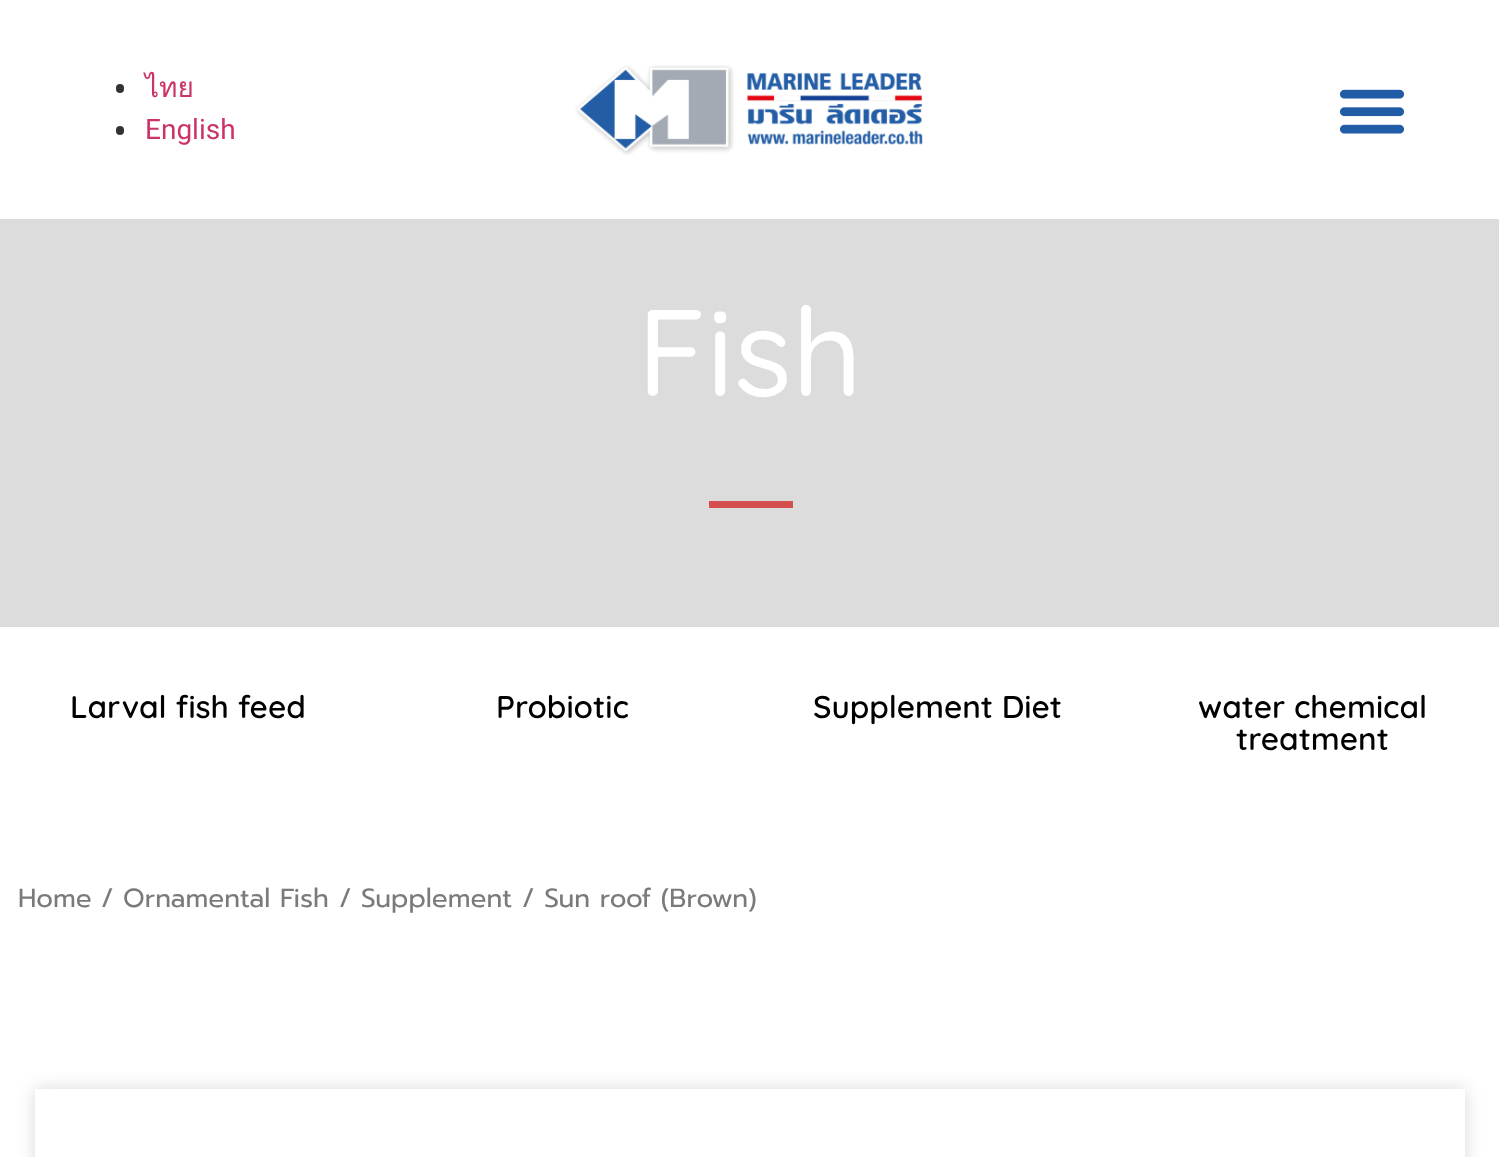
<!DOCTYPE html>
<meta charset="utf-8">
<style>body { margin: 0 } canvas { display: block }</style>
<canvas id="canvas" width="1499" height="1157"></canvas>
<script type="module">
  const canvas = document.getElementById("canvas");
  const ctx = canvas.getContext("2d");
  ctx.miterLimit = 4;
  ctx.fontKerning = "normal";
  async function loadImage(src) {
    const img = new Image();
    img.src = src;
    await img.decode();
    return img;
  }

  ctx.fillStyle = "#ffffff";
  ctx.fillRect(0, 0, 1499, 1157);
  ctx.fillStyle = "#333333";
  ctx.beginPath();
  ctx.roundRect(116, 84, 8, 9, 4);
  ctx.fill();
  ctx.font = "28px Loma";
  ctx.fillStyle = "#cc3366";
  ctx.fillText("ไทย", 145, 97);
  ctx.fillStyle = "#333333";
  ctx.beginPath();
  ctx.roundRect(116, 126, 8, 9, 4);
  ctx.fill();
  ctx.font = "28px Roboto";
  ctx.fillStyle = "#cc3366";
  ctx.fillText("English", 145, 139);
  ctx.drawImage(await loadImage("img1.png"), 575, 65, 348, 90);
  ctx.drawImage(await loadImage("img2.png"), 1339, 89, 66, 45);
  ctx.fillStyle = "#dcdcdc";
  ctx.fillRect(0, 219, 1499, 408);
  ctx.font = "500 123px Quicksand";
  ctx.fillStyle = "#ffffff";
  ctx.fillText("Fish", 637, 396);
  ctx.fillStyle = "#d64f4f";
  ctx.fillRect(709, 501, 84, 7);
  ctx.font = "600 31.5px Quicksand";
  ctx.fillStyle = "#000000";
  ctx.fillText("Larval fish feed", 70, 718);
  ctx.fillText("Probiotic", 496, 718);
  ctx.fillText("Supplement Diet", 813, 718);
  ctx.fillText("water chemical", 1198, 718);
  ctx.fillText("treatment", 1236, 750);
  ctx.font = "26.25px Prompt";
  ctx.fillStyle = "#7a7a7a";
  ctx.fillText("Home", 18, 907);
  ctx.fillText("/", 101, 907);
  ctx.fillText("Ornamental Fish", 123, 907);
  ctx.fillText("/", 339, 907);
  ctx.fillText("Supplement", 361, 907);
  ctx.fillText("/ Sun roof (Brown)", 522, 907);
  ctx.save();
  ctx.beginPath();
  ctx.moveTo(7, 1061);
  ctx.lineTo(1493, 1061);
  ctx.lineTo(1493, 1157);
  ctx.lineTo(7, 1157);
  ctx.closePath();
  ctx.moveTo(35, 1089);
  ctx.lineTo(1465, 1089);
  ctx.lineTo(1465, 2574);
  ctx.lineTo(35, 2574);
  ctx.closePath();
  ctx.clip("evenodd");
  ctx.fillStyle = "rgba(0, 0, 0, 0.15)";
  ctx.filter = "blur(9px)";
  ctx.beginPath();
  ctx.rect(35, 1089, 1430, 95);
  ctx.fill();
  ctx.filter = "none";
  ctx.restore();
</script>
